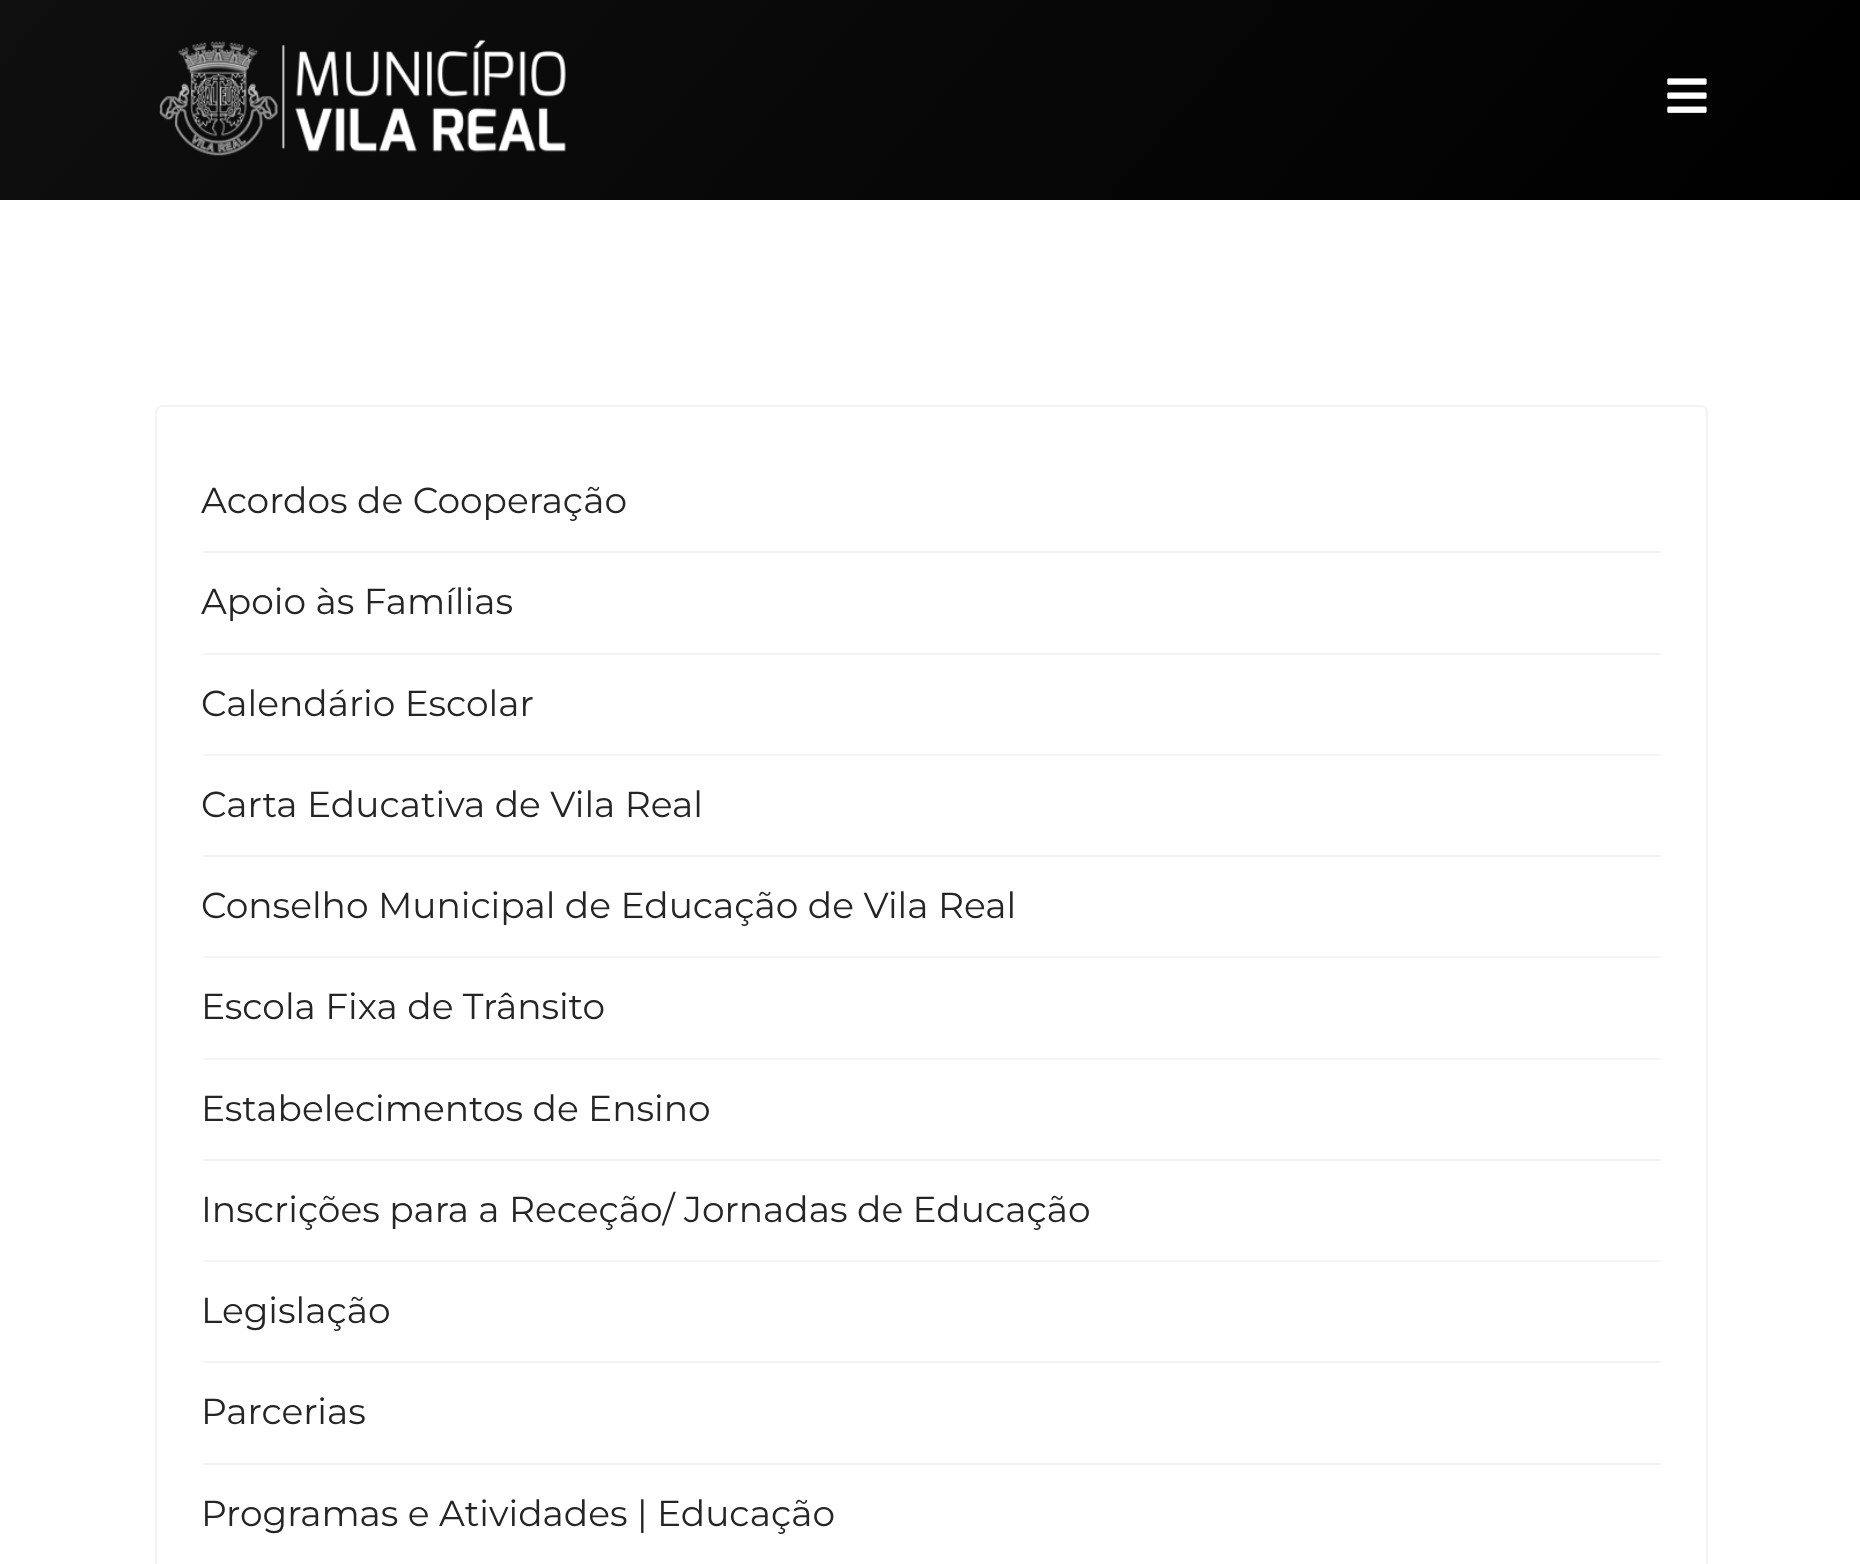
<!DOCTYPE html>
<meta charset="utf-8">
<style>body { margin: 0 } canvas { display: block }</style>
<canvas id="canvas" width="1860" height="1564"></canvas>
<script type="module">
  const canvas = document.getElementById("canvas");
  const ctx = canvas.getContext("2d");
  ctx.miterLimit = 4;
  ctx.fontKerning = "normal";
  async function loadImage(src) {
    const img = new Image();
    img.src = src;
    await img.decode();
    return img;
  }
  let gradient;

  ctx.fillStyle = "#ffffff";
  ctx.fillRect(0, 0, 1860, 1564);
  gradient = ctx.createLinearGradient(351, -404, 1510, 604);
  gradient.addColorStop(0, "#100f0f");
  gradient.addColorStop(1, "#000000");
  ctx.fillStyle = gradient;
  ctx.fillRect(0, 0, 1860, 200);
  ctx.drawImage(await loadImage("img1.png"), 159, 39, 407, 117);
  ctx.drawImage(await loadImage("img2.png"), 1667, 78, 40, 35);
  ctx.beginPath();
  ctx.roundRect(156, 406, 1551, 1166, 6);
  ctx.strokeStyle = "#f3f3f3";
  ctx.lineWidth = 2;
  ctx.stroke();
  ctx.fillStyle = "#f3f3f3";
  ctx.fillRect(203, 551, 1458, 2);
  ctx.font = "36px Montserrat";
  ctx.fillStyle = "#252525";
  ctx.fillText("Acordos de Cooperação", 201, 513);
  ctx.fillStyle = "#f3f3f3";
  ctx.fillRect(203, 653, 1458, 2);
  ctx.fillStyle = "#252525";
  ctx.fillText("Apoio às Famílias", 201, 614);
  ctx.fillStyle = "#f3f3f3";
  ctx.fillRect(203, 754, 1458, 2);
  ctx.fillStyle = "#252525";
  ctx.fillText("Calendário Escolar", 201, 716);
  ctx.fillStyle = "#f3f3f3";
  ctx.fillRect(203, 855, 1458, 2);
  ctx.fillStyle = "#252525";
  ctx.fillText("Carta Educativa de Vila Real", 201, 817);
  ctx.fillStyle = "#f3f3f3";
  ctx.fillRect(203, 956, 1458, 2);
  ctx.fillStyle = "#252525";
  ctx.fillText("Conselho Municipal de Educação de Vila Real", 201, 918);
  ctx.fillStyle = "#f3f3f3";
  ctx.fillRect(203, 1058, 1458, 2);
  ctx.fillStyle = "#252525";
  ctx.fillText("Escola Fixa de Trânsito", 201, 1019);
  ctx.fillStyle = "#f3f3f3";
  ctx.fillRect(203, 1159, 1458, 2);
  ctx.fillStyle = "#252525";
  ctx.fillText("Estabelecimentos de Ensino", 201, 1121);
  ctx.fillStyle = "#f3f3f3";
  ctx.fillRect(203, 1260, 1458, 2);
  ctx.fillStyle = "#252525";
  ctx.fillText("Inscrições para a Receção/ Jornadas de Educação", 201, 1222);
  ctx.fillStyle = "#f3f3f3";
  ctx.fillRect(203, 1361, 1458, 2);
  ctx.fillStyle = "#252525";
  ctx.fillText("Legislação", 201, 1323);
  ctx.fillStyle = "#f3f3f3";
  ctx.fillRect(203, 1463, 1458, 2);
  ctx.fillStyle = "#252525";
  ctx.fillText("Parcerias", 201, 1424);
  ctx.fillText("Programas e Atividades | Educação", 201, 1526);
</script>
